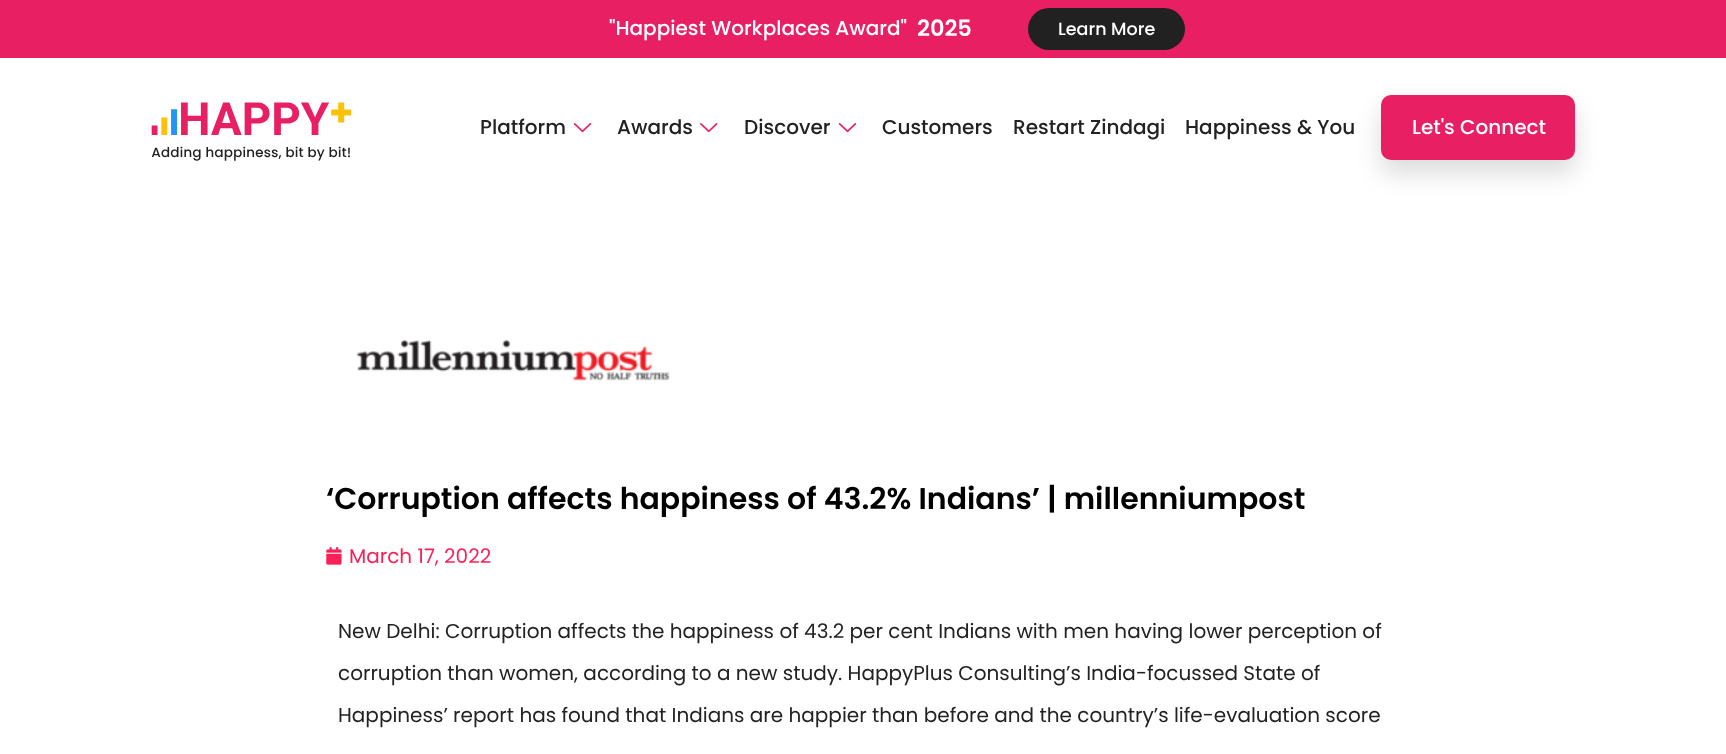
<!DOCTYPE html>
<meta charset="utf-8">
<style>body { margin: 0 } canvas { display: block }</style>
<canvas id="canvas" width="1726" height="754"></canvas>
<script type="module">
  const canvas = document.getElementById("canvas");
  const ctx = canvas.getContext("2d");
  ctx.miterLimit = 4;
  ctx.fontKerning = "normal";
  async function loadImage(src) {
    const img = new Image();
    img.src = src;
    await img.decode();
    return img;
  }

  ctx.fillStyle = "#ffffff";
  ctx.fillRect(0, 0, 1726, 754);
  ctx.fillStyle = "#e91f63";
  ctx.fillRect(0, 0, 1726, 58);
  ctx.font = "500 20px Poppins";
  ctx.fillStyle = "#ffffff";
  ctx.fillText("\"Happiest Workplaces Award\"", 609, 35);
  ctx.font = "600 22.5px Poppins";
  ctx.fillText("2025", 917, 36);
  ctx.fillStyle = "#212121";
  ctx.beginPath();
  ctx.roundRect(1028, 8, 157, 42, 21);
  ctx.fill();
  ctx.font = "500 17.5px Poppins";
  ctx.fillStyle = "#ffffff";
  ctx.fillText("Learn More", 1058, 35);
  ctx.drawImage(await loadImage("img1.png"), 151, 102, 200, 59);
  ctx.font = "500 20px Poppins";
  ctx.fillStyle = "#222222";
  ctx.fillText("Platform", 480, 134);
  ctx.drawImage(await loadImage("img2.png"), 573, 123, 19, 10);
  ctx.fillText("Awards", 617, 134);
  ctx.drawImage(await loadImage("img3.png"), 700, 123, 18, 10);
  ctx.fillText("Discover", 744, 134);
  ctx.drawImage(await loadImage("img2.png"), 838, 123, 19, 10);
  ctx.fillText("Customers", 882, 134);
  ctx.fillText("Restart Zindagi", 1013, 134);
  ctx.fillStyle = "rgba(0, 0, 0, 0.14)";
  ctx.filter = "blur(12.5px)";
  ctx.beginPath();
  ctx.roundRect(1381, 108, 194, 65, 10);
  ctx.fill();
  ctx.filter = "none";
  ctx.fillStyle = "#222222";
  ctx.fillText("Happiness & You", 1185, 134);
  ctx.fillStyle = "#e91f63";
  ctx.beginPath();
  ctx.roundRect(1381, 95, 194, 65, 10);
  ctx.fill();
  ctx.fillStyle = "#ffffff";
  ctx.fillText("Let's Connect", 1412, 134);
  ctx.drawImage(await loadImage("img4.png"), 356, 339, 314, 42);
  ctx.font = "600 30px Poppins";
  ctx.fillStyle = "#000000";
  ctx.fillText("‘Corruption affects happiness of 43.2% Indians’ | millenniumpost", 326, 509);
  ctx.drawImage(await loadImage("img5.png"), 326, 547, 16, 18);
  ctx.font = "20px Poppins";
  ctx.fillStyle = "#fb2056";
  ctx.fillText("March 17, 2022", 349, 563);
  ctx.fillStyle = "#222222";
  ctx.fillText("New Delhi: Corruption affects the happiness of 43.2 per cent Indians with men having lower perception of", 338, 638);
  ctx.fillText("corruption than women, according to a new study. HappyPlus Consulting’s India-focussed State of", 338, 680);
  ctx.fillText("Happiness’ report has found that Indians are happier than before and the country’s life-evaluation score", 338, 722);
</script>
